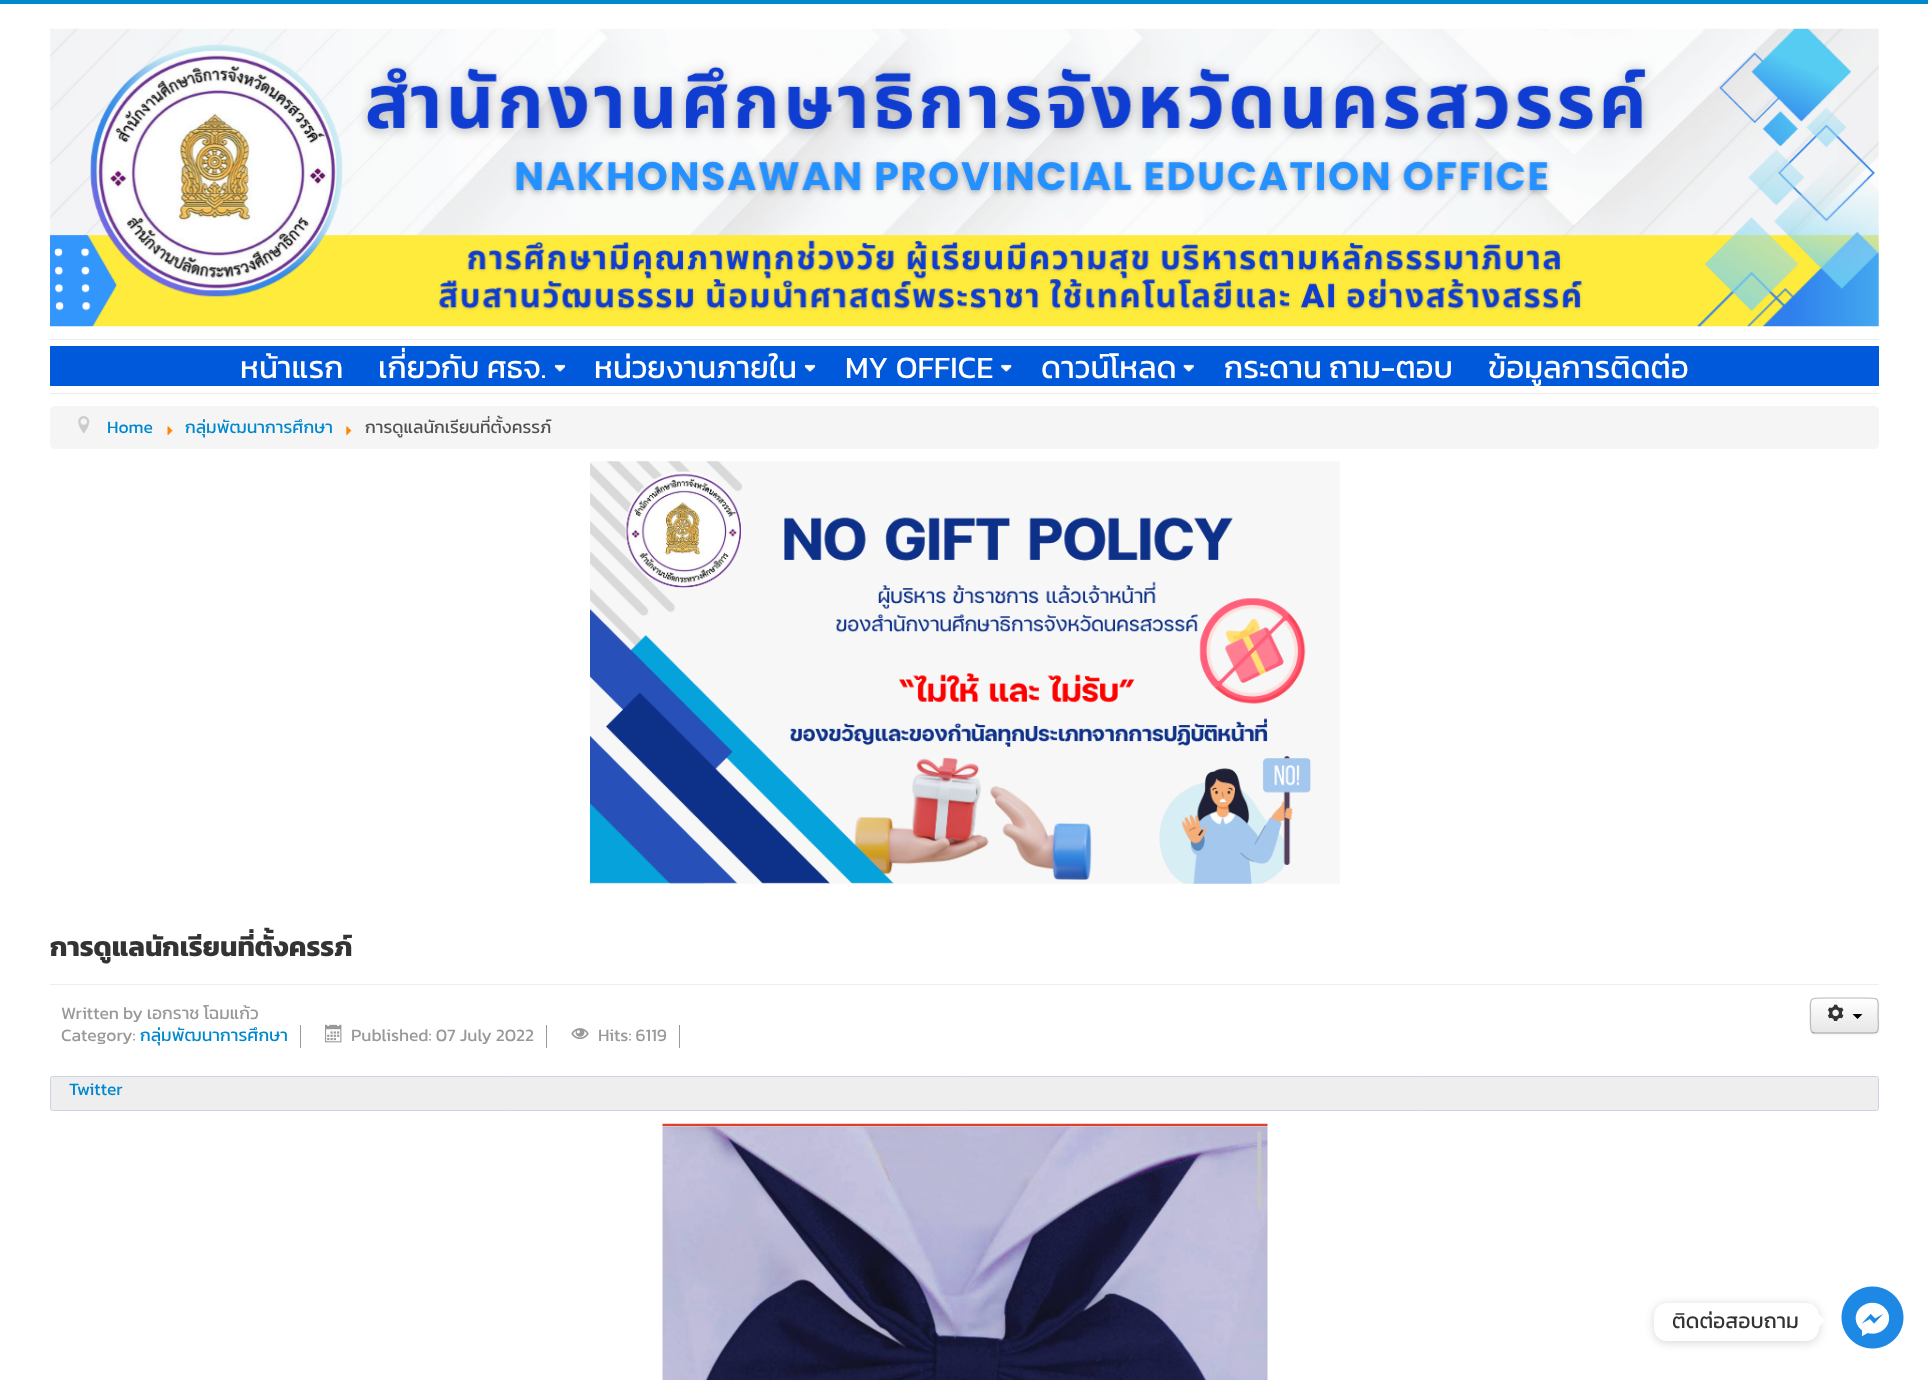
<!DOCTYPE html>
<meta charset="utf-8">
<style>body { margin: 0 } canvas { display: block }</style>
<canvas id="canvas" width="1928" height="1380"></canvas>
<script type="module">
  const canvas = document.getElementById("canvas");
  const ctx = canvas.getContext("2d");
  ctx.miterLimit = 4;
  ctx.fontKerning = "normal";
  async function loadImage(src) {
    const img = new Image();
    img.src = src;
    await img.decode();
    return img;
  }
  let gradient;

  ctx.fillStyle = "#ffffff";
  ctx.fillRect(0, 0, 1928, 1380);
  ctx.fillStyle = "#0088cc";
  ctx.fillRect(0, 0, 1928, 4);
  ctx.drawImage(await loadImage("img1.png"), 50, 28, 1829, 299);
  ctx.fillStyle = "#ececec";
  ctx.fillRect(50, 339, 1829, 1);
  ctx.fillRect(50, 393, 1829, 1);
  ctx.fillStyle = "#0058db";
  ctx.fillRect(50, 346, 1829, 40);
  ctx.font = "31.25px Kanit";
  ctx.fillStyle = "#ffffff";
  ctx.fillText("หน้าแรก", 240, 378);
  ctx.fillText("เกี่ยวกับ ศธจ.", 378, 378);
  ctx.drawImage(await loadImage("img2.png"), 555, 364, 10, 8);
  ctx.fillText("หน่วยงานภายใน", 594, 378);
  ctx.drawImage(await loadImage("img2.png"), 805, 364, 10, 8);
  ctx.fillText("MY OFFICE", 845, 378);
  ctx.drawImage(await loadImage("img3.png"), 1001, 364, 11, 8);
  ctx.fillText("ดาวน์โหลด", 1041, 378);
  ctx.drawImage(await loadImage("img4.png"), 1183, 364, 11, 8);
  ctx.fillText("กระดาน ถาม-ตอบ", 1224, 378);
  ctx.fillText("ข้อมูลการติดต่อ", 1488, 378);
  ctx.fillStyle = "#f5f5f5";
  ctx.beginPath();
  ctx.roundRect(50, 406, 1829, 43, 5);
  ctx.fill();
  ctx.drawImage(await loadImage("img5.png"), 78, 416, 12, 18);
  ctx.font = "17.5px Kanit";
  ctx.fillStyle = "#0088cc";
  ctx.fillText("Home", 107, 433);
  ctx.drawImage(await loadImage("img6.png"), 167, 426, 6, 9);
  ctx.fillText("กลุ่มพัฒนาการศึกษา", 185, 433);
  ctx.drawImage(await loadImage("img7.png"), 346, 426, 6, 9);
  ctx.fillStyle = "#515151";
  ctx.fillText("การดูแลนักเรียนที่ตั้งครรภ์", 365, 433);
  ctx.drawImage(await loadImage("img8.png"), 590, 461, 750, 423);
  ctx.fillStyle = "#eeeeee";
  ctx.fillRect(50, 984, 1829, 1);
  ctx.font = "bold 27.5px Kanit";
  ctx.fillStyle = "#333333";
  ctx.fillText("การดูแลนักเรียนที่ตั้งครรภ์", 50, 956);
  ctx.font = "17.5px Kanit";
  ctx.fillStyle = "#999999";
  ctx.fillText("Written by เอกราช โฉมแก้ว", 61, 1019);
  ctx.fillRect(300, 1025, 1, 23);
  ctx.fillText("Category:", 61, 1041);
  ctx.fillStyle = "#0088cc";
  ctx.fillText("กลุ่มพัฒนาการศึกษา", 140, 1041);
  ctx.fillStyle = "#999999";
  ctx.fillRect(546, 1025, 1, 23);
  ctx.drawImage(await loadImage("img9.png"), 325, 1024, 17, 19);
  ctx.fillText("Published: 07 July 2022", 351, 1041);
  ctx.fillRect(679, 1025, 1, 23);
  ctx.drawImage(await loadImage("img10.png"), 571, 1028, 18, 11);
  ctx.fillText("Hits: 6119", 598, 1041);
  ctx.fillStyle = "rgba(0, 0, 0, 0.05)";
  ctx.filter = "blur(1px)";
  ctx.beginPath();
  ctx.roundRect(1810, 999, 69, 36, 5);
  ctx.fill();
  ctx.filter = "none";
  ctx.fillStyle = "#f5f5f5";
  ctx.beginPath();
  ctx.roundRect(1810, 998, 69, 36, 5);
  ctx.fill();
  ctx.save();
  ctx.beginPath();
  ctx.roundRect(1810, 998, 69, 36, 5);
  ctx.clip();
  gradient = ctx.createLinearGradient(1844, 999, 1844, 1033);
  gradient.addColorStop(0, "#ffffff");
  gradient.addColorStop(1, "#e6e6e6");
  ctx.fillStyle = gradient;
  ctx.fillRect(1810, 999, 69, 34);
  ctx.restore();
  ctx.fillStyle = "#ffffff";
  ctx.beginPath();
  ctx.moveTo(1815, 1000);
  ctx.lineTo(1874, 1000);
  ctx.bezierCurveTo(1876, 1000, 1878, 1002, 1878, 1004);
  ctx.bezierCurveTo(1878, 997, 1869, 999, 1864, 999);
  ctx.lineTo(1825, 999);
  ctx.bezierCurveTo(1820, 999, 1811, 997, 1811, 1004);
  ctx.bezierCurveTo(1811, 1002, 1813, 1000, 1815, 1000);
  ctx.closePath();
  ctx.fill();
  ctx.beginPath();
  ctx.moveTo(1877, 1032);
  ctx.bezierCurveTo(1876, 1032.5, 1875, 1033, 1874, 1033);
  ctx.lineTo(1815, 1033);
  ctx.bezierCurveTo(1814, 1033, 1812.5, 1032.5, 1812, 1032);
  ctx.strokeStyle = "#a2a2a2";
  ctx.lineWidth = 1.2;
  ctx.stroke();
  ctx.beginPath();
  ctx.moveTo(1812, 1032);
  ctx.bezierCurveTo(1809.5, 1029, 1810.5, 1019, 1810.5, 1015.5);
  ctx.bezierCurveTo(1810.5, 998, 1807.5, 998, 1825, 998);
  ctx.lineTo(1864, 998);
  ctx.bezierCurveTo(1881.5, 998, 1878, 998, 1878, 1015.5);
  ctx.bezierCurveTo(1878, 1019, 1879.5, 1029, 1877, 1032);
  ctx.strokeStyle = "#bbbbbb";
  ctx.stroke();
  ctx.drawImage(await loadImage("img11.png"), 1827, 1004, 17, 17);
  ctx.fillStyle = "#000000";
  ctx.beginPath();
  ctx.moveTo(1852.5, 1014);
  ctx.lineTo(1862.5, 1014);
  ctx.lineTo(1857.5, 1019);
  ctx.closePath();
  ctx.fill();
  ctx.fillStyle = "#eeeeee";
  ctx.beginPath();
  ctx.roundRect(50.5, 1076.5, 1828, 34, 2);
  ctx.fill();
  ctx.strokeStyle = "#cad4e7";
  ctx.lineWidth = 1;
  ctx.stroke();
  ctx.fillStyle = "#0088cc";
  ctx.fillText("Twitter", 69, 1095);
  ctx.drawImage(await loadImage("img12.png"), 662, 1123, 606, 257);
  ctx.fillStyle = "rgba(0, 0, 0, 0.15)";
  ctx.filter = "blur(5px)";
  ctx.beginPath();
  ctx.roundRect(1654, 1304, 165, 39, 13);
  ctx.fill();
  ctx.filter = "none";
  ctx.fillStyle = "#ffffff";
  ctx.beginPath();
  ctx.roundRect(1654, 1303, 165, 38, 13);
  ctx.fill();
  ctx.font = "21.25px Kanit";
  ctx.fillStyle = "#333333";
  ctx.fillText("ติดต่อสอบถาม", 1672, 1328);
  ctx.fillStyle = "#ffffff";
  ctx.beginPath();
  ctx.moveTo(1817.5, 1328);
  ctx.lineTo(1817.5, 1313);
  ctx.lineTo(1825, 1320.5);
  ctx.closePath();
  ctx.fill();
  ctx.drawImage(await loadImage("img13.png"), 1841, 1286, 63, 63);
</script>
